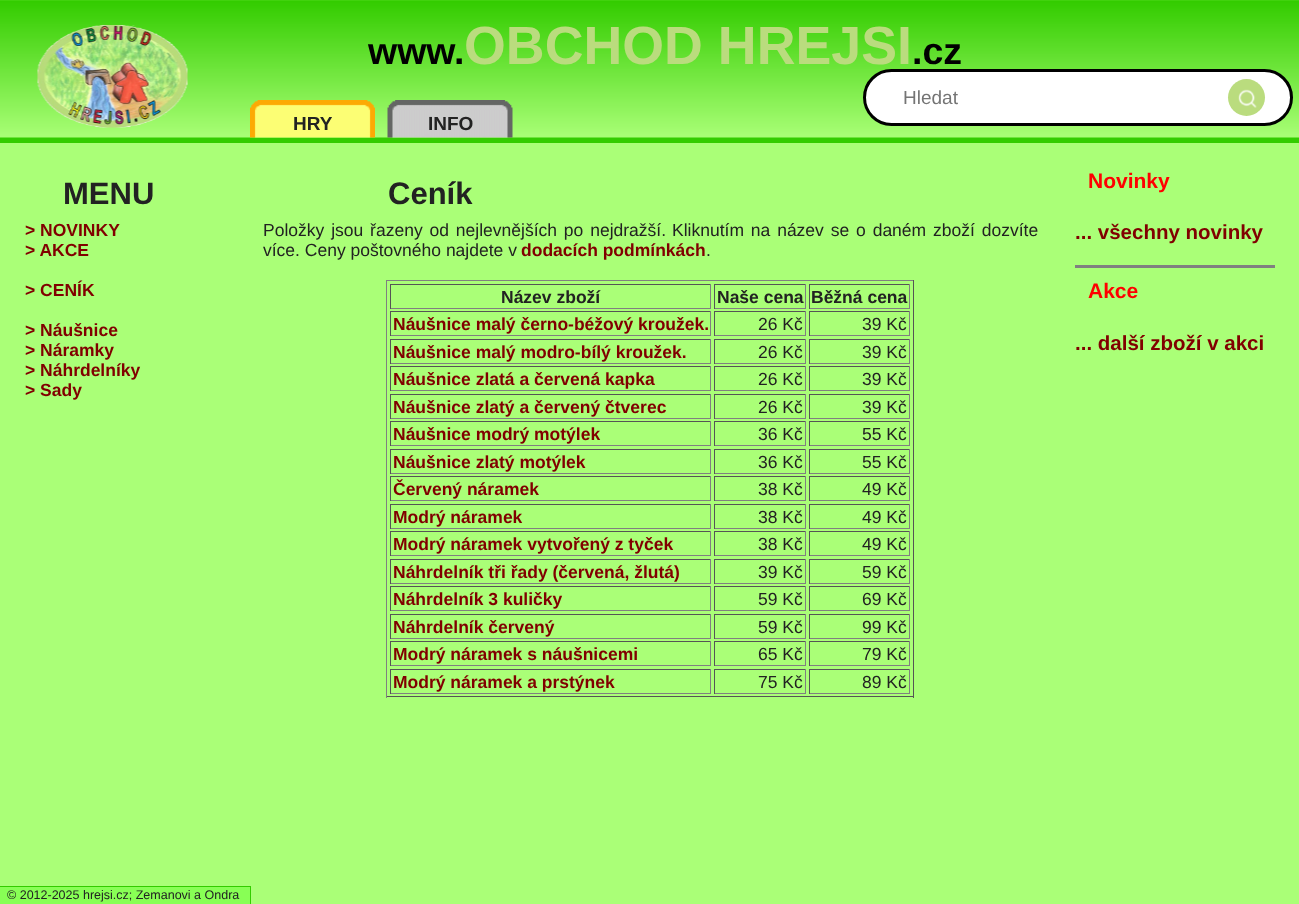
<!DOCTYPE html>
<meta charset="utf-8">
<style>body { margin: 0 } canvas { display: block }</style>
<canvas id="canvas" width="1299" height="904"></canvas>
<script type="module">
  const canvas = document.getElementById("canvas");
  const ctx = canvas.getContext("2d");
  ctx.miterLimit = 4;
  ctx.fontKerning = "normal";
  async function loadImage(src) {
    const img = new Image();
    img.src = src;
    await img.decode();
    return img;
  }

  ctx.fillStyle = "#aaff77";
  ctx.fillRect(0, 0, 1299, 904);
  ctx.drawImage(await loadImage("img2.png"), 0, 0, 1299, 138);
  ctx.drawImage(await loadImage("img1.png"), 37, 25, 151, 103);
  ctx.fillStyle = "#33cc00";
  ctx.fillRect(0, 138, 1299, 5);
  ctx.font = "bold 37.5px Liberation Sans";
  ctx.fillStyle = "#000000";
  ctx.fillText("www.", 368, 64);
  ctx.font = "bold 53.75px Liberation Sans";
  ctx.fillStyle = "#badc7e";
  ctx.fillText("OBCHOD HREJSI", 464, 64);
  ctx.font = "bold 37.5px Liberation Sans";
  ctx.fillStyle = "#000000";
  ctx.fillText(".cz", 912, 64);
  ctx.fillStyle = "#ffffff";
  ctx.beginPath();
  ctx.roundRect(864.5, 70.5, 427, 54, 27);
  ctx.fill();
  ctx.strokeStyle = "#000000";
  ctx.lineWidth = 3;
  ctx.stroke();
  ctx.font = "19px Liberation Sans";
  ctx.fillStyle = "#757575";
  ctx.fillText("Hledat", 903, 104);
  ctx.fillStyle = "#badc7e";
  ctx.beginPath();
  ctx.arc(1246.5, 97.5, 18.5, 0, Math.PI * 2);
  ctx.fill();
  ctx.drawImage(await loadImage("img3.png"), 1238, 89, 19, 19);
  ctx.drawImage(await loadImage("img4.png"), 250, 100, 125, 38);
  ctx.font = "bold 19px Liberation Sans";
  ctx.fillStyle = "#222222";
  ctx.fillText("HRY", 293, 130);
  ctx.drawImage(await loadImage("img5.png"), 387, 100, 126, 38);
  ctx.fillText("INFO", 428, 130);
  ctx.font = "bold 31px Liberation Sans";
  ctx.fillText("MENU", 63, 204);
  ctx.font = "bold 17.5px Liberation Sans";
  ctx.fillStyle = "#800000";
  ctx.fillText("> NOVINKY", 25, 236);
  ctx.fillText("> AKCE", 25, 256);
  ctx.fillText("> CENÍK", 25, 296);
  ctx.fillText("> Náušnice", 25, 336);
  ctx.fillText("> Náramky", 25, 356);
  ctx.fillText("> Náhrdelníky", 25, 376);
  ctx.fillText("> Sady", 25, 396);
  ctx.font = "bold 31px Liberation Sans";
  ctx.fillStyle = "#222222";
  ctx.fillText("Ceník", 388, 204);
  ctx.wordSpacing = "2px";
  ctx.font = "17.5px Liberation Sans";
  ctx.fillText("Položky jsou řazeny od nejlevnějších po nejdražší.", 263, 236);
  ctx.fillText("Kliknutím na název se o daném zboží dozvíte", 672, 236);
  ctx.wordSpacing = "0px";
  ctx.fillText("více. Ceny poštovného najdete v", 263, 256);
  ctx.font = "bold 17.5px Liberation Sans";
  ctx.fillStyle = "#800000";
  ctx.fillText("dodacích podmínkách", 521, 256);
  ctx.font = "17.5px Liberation Sans";
  ctx.fillStyle = "#222222";
  ctx.fillText(".", 706, 256);
  ctx.fillStyle = "#808080";
  ctx.fillRect(386, 280, 528, 1);
  ctx.fillStyle = "#555555";
  ctx.fillRect(913, 280, 1, 418);
  ctx.fillRect(386, 696, 528, 1);
  ctx.fillStyle = "#808080";
  ctx.fillRect(386, 280, 1, 418);
  ctx.fillStyle = "#555555";
  ctx.fillRect(390, 284, 321, 1);
  ctx.fillStyle = "#808080";
  ctx.fillRect(710, 284, 1, 25);
  ctx.fillRect(390, 308, 321, 1);
  ctx.fillStyle = "#555555";
  ctx.fillRect(390, 284, 1, 25);
  ctx.font = "bold 17.5px Liberation Sans";
  ctx.fillStyle = "#222222";
  ctx.fillText("Název zboží", 501, 303);
  ctx.fillStyle = "#555555";
  ctx.fillRect(714, 284, 92, 1);
  ctx.fillStyle = "#808080";
  ctx.fillRect(805, 284, 1, 25);
  ctx.fillRect(714, 308, 92, 1);
  ctx.fillStyle = "#555555";
  ctx.fillRect(714, 284, 1, 25);
  ctx.fillStyle = "#222222";
  ctx.fillText("Naše cena", 717, 303);
  ctx.fillStyle = "#555555";
  ctx.fillRect(809, 284, 101, 1);
  ctx.fillStyle = "#808080";
  ctx.fillRect(909, 284, 1, 25);
  ctx.fillRect(809, 308, 101, 1);
  ctx.fillStyle = "#555555";
  ctx.fillRect(809, 284, 1, 25);
  ctx.fillStyle = "#222222";
  ctx.fillText("Běžná cena", 811, 303);
  ctx.fillStyle = "#555555";
  ctx.fillRect(390, 311, 321, 1);
  ctx.fillStyle = "#808080";
  ctx.fillRect(710, 311, 1, 25);
  ctx.fillRect(390, 335, 321, 1);
  ctx.fillStyle = "#555555";
  ctx.fillRect(390, 311, 1, 25);
  ctx.fillStyle = "#800000";
  ctx.fillText("Náušnice malý černo-béžový kroužek.", 393, 330);
  ctx.fillStyle = "#555555";
  ctx.fillRect(714, 311, 92, 1);
  ctx.fillStyle = "#808080";
  ctx.fillRect(805, 311, 1, 25);
  ctx.fillRect(714, 335, 92, 1);
  ctx.fillStyle = "#555555";
  ctx.fillRect(714, 311, 1, 25);
  ctx.font = "17.5px Liberation Sans";
  ctx.fillStyle = "#222222";
  ctx.fillText("26 Kč", 758, 330);
  ctx.fillStyle = "#555555";
  ctx.fillRect(809, 311, 101, 1);
  ctx.fillStyle = "#808080";
  ctx.fillRect(909, 311, 1, 25);
  ctx.fillRect(809, 335, 101, 1);
  ctx.fillStyle = "#555555";
  ctx.fillRect(809, 311, 1, 25);
  ctx.fillStyle = "#222222";
  ctx.fillText("39 Kč", 862, 330);
  ctx.fillStyle = "#555555";
  ctx.fillRect(390, 339, 321, 1);
  ctx.fillStyle = "#808080";
  ctx.fillRect(710, 339, 1, 25);
  ctx.fillRect(390, 363, 321, 1);
  ctx.fillStyle = "#555555";
  ctx.fillRect(390, 339, 1, 25);
  ctx.font = "bold 17.5px Liberation Sans";
  ctx.fillStyle = "#800000";
  ctx.fillText("Náušnice malý modro-bílý kroužek.", 393, 358);
  ctx.fillStyle = "#555555";
  ctx.fillRect(714, 339, 92, 1);
  ctx.fillStyle = "#808080";
  ctx.fillRect(805, 339, 1, 25);
  ctx.fillRect(714, 363, 92, 1);
  ctx.fillStyle = "#555555";
  ctx.fillRect(714, 339, 1, 25);
  ctx.font = "17.5px Liberation Sans";
  ctx.fillStyle = "#222222";
  ctx.fillText("26 Kč", 758, 358);
  ctx.fillStyle = "#555555";
  ctx.fillRect(809, 339, 101, 1);
  ctx.fillStyle = "#808080";
  ctx.fillRect(909, 339, 1, 25);
  ctx.fillRect(809, 363, 101, 1);
  ctx.fillStyle = "#555555";
  ctx.fillRect(809, 339, 1, 25);
  ctx.fillStyle = "#222222";
  ctx.fillText("39 Kč", 862, 358);
  ctx.fillStyle = "#555555";
  ctx.fillRect(390, 366, 321, 1);
  ctx.fillStyle = "#808080";
  ctx.fillRect(710, 366, 1, 25);
  ctx.fillRect(390, 390, 321, 1);
  ctx.fillStyle = "#555555";
  ctx.fillRect(390, 366, 1, 25);
  ctx.font = "bold 17.5px Liberation Sans";
  ctx.fillStyle = "#800000";
  ctx.fillText("Náušnice zlatá a červená kapka", 393, 385);
  ctx.fillStyle = "#555555";
  ctx.fillRect(714, 366, 92, 1);
  ctx.fillStyle = "#808080";
  ctx.fillRect(805, 366, 1, 25);
  ctx.fillRect(714, 390, 92, 1);
  ctx.fillStyle = "#555555";
  ctx.fillRect(714, 366, 1, 25);
  ctx.font = "17.5px Liberation Sans";
  ctx.fillStyle = "#222222";
  ctx.fillText("26 Kč", 758, 385);
  ctx.fillStyle = "#555555";
  ctx.fillRect(809, 366, 101, 1);
  ctx.fillStyle = "#808080";
  ctx.fillRect(909, 366, 1, 25);
  ctx.fillRect(809, 390, 101, 1);
  ctx.fillStyle = "#555555";
  ctx.fillRect(809, 366, 1, 25);
  ctx.fillStyle = "#222222";
  ctx.fillText("39 Kč", 862, 385);
  ctx.fillStyle = "#555555";
  ctx.fillRect(390, 394, 321, 1);
  ctx.fillStyle = "#808080";
  ctx.fillRect(710, 394, 1, 25);
  ctx.fillRect(390, 418, 321, 1);
  ctx.fillStyle = "#555555";
  ctx.fillRect(390, 394, 1, 25);
  ctx.font = "bold 17.5px Liberation Sans";
  ctx.fillStyle = "#800000";
  ctx.fillText("Náušnice zlatý a červený čtverec", 393, 413);
  ctx.fillStyle = "#555555";
  ctx.fillRect(714, 394, 92, 1);
  ctx.fillStyle = "#808080";
  ctx.fillRect(805, 394, 1, 25);
  ctx.fillRect(714, 418, 92, 1);
  ctx.fillStyle = "#555555";
  ctx.fillRect(714, 394, 1, 25);
  ctx.font = "17.5px Liberation Sans";
  ctx.fillStyle = "#222222";
  ctx.fillText("26 Kč", 758, 413);
  ctx.fillStyle = "#555555";
  ctx.fillRect(809, 394, 101, 1);
  ctx.fillStyle = "#808080";
  ctx.fillRect(909, 394, 1, 25);
  ctx.fillRect(809, 418, 101, 1);
  ctx.fillStyle = "#555555";
  ctx.fillRect(809, 394, 1, 25);
  ctx.fillStyle = "#222222";
  ctx.fillText("39 Kč", 862, 413);
  ctx.fillStyle = "#555555";
  ctx.fillRect(390, 421, 321, 1);
  ctx.fillStyle = "#808080";
  ctx.fillRect(710, 421, 1, 25);
  ctx.fillRect(390, 445, 321, 1);
  ctx.fillStyle = "#555555";
  ctx.fillRect(390, 421, 1, 25);
  ctx.font = "bold 17.5px Liberation Sans";
  ctx.fillStyle = "#800000";
  ctx.fillText("Náušnice modrý motýlek", 393, 440);
  ctx.fillStyle = "#555555";
  ctx.fillRect(714, 421, 92, 1);
  ctx.fillStyle = "#808080";
  ctx.fillRect(805, 421, 1, 25);
  ctx.fillRect(714, 445, 92, 1);
  ctx.fillStyle = "#555555";
  ctx.fillRect(714, 421, 1, 25);
  ctx.font = "17.5px Liberation Sans";
  ctx.fillStyle = "#222222";
  ctx.fillText("36 Kč", 758, 440);
  ctx.fillStyle = "#555555";
  ctx.fillRect(809, 421, 101, 1);
  ctx.fillStyle = "#808080";
  ctx.fillRect(909, 421, 1, 25);
  ctx.fillRect(809, 445, 101, 1);
  ctx.fillStyle = "#555555";
  ctx.fillRect(809, 421, 1, 25);
  ctx.fillStyle = "#222222";
  ctx.fillText("55 Kč", 862, 440);
  ctx.fillStyle = "#555555";
  ctx.fillRect(390, 449, 321, 1);
  ctx.fillStyle = "#808080";
  ctx.fillRect(710, 449, 1, 25);
  ctx.fillRect(390, 473, 321, 1);
  ctx.fillStyle = "#555555";
  ctx.fillRect(390, 449, 1, 25);
  ctx.font = "bold 17.5px Liberation Sans";
  ctx.fillStyle = "#800000";
  ctx.fillText("Náušnice zlatý motýlek", 393, 468);
  ctx.fillStyle = "#555555";
  ctx.fillRect(714, 449, 92, 1);
  ctx.fillStyle = "#808080";
  ctx.fillRect(805, 449, 1, 25);
  ctx.fillRect(714, 473, 92, 1);
  ctx.fillStyle = "#555555";
  ctx.fillRect(714, 449, 1, 25);
  ctx.font = "17.5px Liberation Sans";
  ctx.fillStyle = "#222222";
  ctx.fillText("36 Kč", 758, 468);
  ctx.fillStyle = "#555555";
  ctx.fillRect(809, 449, 101, 1);
  ctx.fillStyle = "#808080";
  ctx.fillRect(909, 449, 1, 25);
  ctx.fillRect(809, 473, 101, 1);
  ctx.fillStyle = "#555555";
  ctx.fillRect(809, 449, 1, 25);
  ctx.fillStyle = "#222222";
  ctx.fillText("55 Kč", 862, 468);
  ctx.fillStyle = "#555555";
  ctx.fillRect(390, 476, 321, 1);
  ctx.fillStyle = "#808080";
  ctx.fillRect(710, 476, 1, 25);
  ctx.fillRect(390, 500, 321, 1);
  ctx.fillStyle = "#555555";
  ctx.fillRect(390, 476, 1, 25);
  ctx.font = "bold 17.5px Liberation Sans";
  ctx.fillStyle = "#800000";
  ctx.fillText("Červený náramek", 393, 495);
  ctx.fillStyle = "#555555";
  ctx.fillRect(714, 476, 92, 1);
  ctx.fillStyle = "#808080";
  ctx.fillRect(805, 476, 1, 25);
  ctx.fillRect(714, 500, 92, 1);
  ctx.fillStyle = "#555555";
  ctx.fillRect(714, 476, 1, 25);
  ctx.font = "17.5px Liberation Sans";
  ctx.fillStyle = "#222222";
  ctx.fillText("38 Kč", 758, 495);
  ctx.fillStyle = "#555555";
  ctx.fillRect(809, 476, 101, 1);
  ctx.fillStyle = "#808080";
  ctx.fillRect(909, 476, 1, 25);
  ctx.fillRect(809, 500, 101, 1);
  ctx.fillStyle = "#555555";
  ctx.fillRect(809, 476, 1, 25);
  ctx.fillStyle = "#222222";
  ctx.fillText("49 Kč", 862, 495);
  ctx.fillStyle = "#555555";
  ctx.fillRect(390, 504, 321, 1);
  ctx.fillStyle = "#808080";
  ctx.fillRect(710, 504, 1, 25);
  ctx.fillRect(390, 528, 321, 1);
  ctx.fillStyle = "#555555";
  ctx.fillRect(390, 504, 1, 25);
  ctx.font = "bold 17.5px Liberation Sans";
  ctx.fillStyle = "#800000";
  ctx.fillText("Modrý náramek", 393, 523);
  ctx.fillStyle = "#555555";
  ctx.fillRect(714, 504, 92, 1);
  ctx.fillStyle = "#808080";
  ctx.fillRect(805, 504, 1, 25);
  ctx.fillRect(714, 528, 92, 1);
  ctx.fillStyle = "#555555";
  ctx.fillRect(714, 504, 1, 25);
  ctx.font = "17.5px Liberation Sans";
  ctx.fillStyle = "#222222";
  ctx.fillText("38 Kč", 758, 523);
  ctx.fillStyle = "#555555";
  ctx.fillRect(809, 504, 101, 1);
  ctx.fillStyle = "#808080";
  ctx.fillRect(909, 504, 1, 25);
  ctx.fillRect(809, 528, 101, 1);
  ctx.fillStyle = "#555555";
  ctx.fillRect(809, 504, 1, 25);
  ctx.fillStyle = "#222222";
  ctx.fillText("49 Kč", 862, 523);
  ctx.fillStyle = "#555555";
  ctx.fillRect(390, 531, 321, 1);
  ctx.fillStyle = "#808080";
  ctx.fillRect(710, 531, 1, 25);
  ctx.fillRect(390, 555, 321, 1);
  ctx.fillStyle = "#555555";
  ctx.fillRect(390, 531, 1, 25);
  ctx.font = "bold 17.5px Liberation Sans";
  ctx.fillStyle = "#800000";
  ctx.fillText("Modrý náramek vytvořený z tyček", 393, 550);
  ctx.fillStyle = "#555555";
  ctx.fillRect(714, 531, 92, 1);
  ctx.fillStyle = "#808080";
  ctx.fillRect(805, 531, 1, 25);
  ctx.fillRect(714, 555, 92, 1);
  ctx.fillStyle = "#555555";
  ctx.fillRect(714, 531, 1, 25);
  ctx.font = "17.5px Liberation Sans";
  ctx.fillStyle = "#222222";
  ctx.fillText("38 Kč", 758, 550);
  ctx.fillStyle = "#555555";
  ctx.fillRect(809, 531, 101, 1);
  ctx.fillStyle = "#808080";
  ctx.fillRect(909, 531, 1, 25);
  ctx.fillRect(809, 555, 101, 1);
  ctx.fillStyle = "#555555";
  ctx.fillRect(809, 531, 1, 25);
  ctx.fillStyle = "#222222";
  ctx.fillText("49 Kč", 862, 550);
  ctx.fillStyle = "#555555";
  ctx.fillRect(390, 559, 321, 1);
  ctx.fillStyle = "#808080";
  ctx.fillRect(710, 559, 1, 25);
  ctx.fillRect(390, 583, 321, 1);
  ctx.fillStyle = "#555555";
  ctx.fillRect(390, 559, 1, 25);
  ctx.font = "bold 17.5px Liberation Sans";
  ctx.fillStyle = "#800000";
  ctx.fillText("Náhrdelník tři řady (červená, žlutá)", 393, 578);
  ctx.fillStyle = "#555555";
  ctx.fillRect(714, 559, 92, 1);
  ctx.fillStyle = "#808080";
  ctx.fillRect(805, 559, 1, 25);
  ctx.fillRect(714, 583, 92, 1);
  ctx.fillStyle = "#555555";
  ctx.fillRect(714, 559, 1, 25);
  ctx.font = "17.5px Liberation Sans";
  ctx.fillStyle = "#222222";
  ctx.fillText("39 Kč", 758, 578);
  ctx.fillStyle = "#555555";
  ctx.fillRect(809, 559, 101, 1);
  ctx.fillStyle = "#808080";
  ctx.fillRect(909, 559, 1, 25);
  ctx.fillRect(809, 583, 101, 1);
  ctx.fillStyle = "#555555";
  ctx.fillRect(809, 559, 1, 25);
  ctx.fillStyle = "#222222";
  ctx.fillText("59 Kč", 862, 578);
  ctx.fillStyle = "#555555";
  ctx.fillRect(390, 586, 321, 1);
  ctx.fillStyle = "#808080";
  ctx.fillRect(710, 586, 1, 25);
  ctx.fillRect(390, 610, 321, 1);
  ctx.fillStyle = "#555555";
  ctx.fillRect(390, 586, 1, 25);
  ctx.font = "bold 17.5px Liberation Sans";
  ctx.fillStyle = "#800000";
  ctx.fillText("Náhrdelník 3 kuličky", 393, 605);
  ctx.fillStyle = "#555555";
  ctx.fillRect(714, 586, 92, 1);
  ctx.fillStyle = "#808080";
  ctx.fillRect(805, 586, 1, 25);
  ctx.fillRect(714, 610, 92, 1);
  ctx.fillStyle = "#555555";
  ctx.fillRect(714, 586, 1, 25);
  ctx.font = "17.5px Liberation Sans";
  ctx.fillStyle = "#222222";
  ctx.fillText("59 Kč", 758, 605);
  ctx.fillStyle = "#555555";
  ctx.fillRect(809, 586, 101, 1);
  ctx.fillStyle = "#808080";
  ctx.fillRect(909, 586, 1, 25);
  ctx.fillRect(809, 610, 101, 1);
  ctx.fillStyle = "#555555";
  ctx.fillRect(809, 586, 1, 25);
  ctx.fillStyle = "#222222";
  ctx.fillText("69 Kč", 862, 605);
  ctx.fillStyle = "#555555";
  ctx.fillRect(390, 614, 321, 1);
  ctx.fillStyle = "#808080";
  ctx.fillRect(710, 614, 1, 25);
  ctx.fillRect(390, 638, 321, 1);
  ctx.fillStyle = "#555555";
  ctx.fillRect(390, 614, 1, 25);
  ctx.font = "bold 17.5px Liberation Sans";
  ctx.fillStyle = "#800000";
  ctx.fillText("Náhrdelník červený", 393, 633);
  ctx.fillStyle = "#555555";
  ctx.fillRect(714, 614, 92, 1);
  ctx.fillStyle = "#808080";
  ctx.fillRect(805, 614, 1, 25);
  ctx.fillRect(714, 638, 92, 1);
  ctx.fillStyle = "#555555";
  ctx.fillRect(714, 614, 1, 25);
  ctx.font = "17.5px Liberation Sans";
  ctx.fillStyle = "#222222";
  ctx.fillText("59 Kč", 758, 633);
  ctx.fillStyle = "#555555";
  ctx.fillRect(809, 614, 101, 1);
  ctx.fillStyle = "#808080";
  ctx.fillRect(909, 614, 1, 25);
  ctx.fillRect(809, 638, 101, 1);
  ctx.fillStyle = "#555555";
  ctx.fillRect(809, 614, 1, 25);
  ctx.fillStyle = "#222222";
  ctx.fillText("99 Kč", 862, 633);
  ctx.fillStyle = "#555555";
  ctx.fillRect(390, 641, 321, 1);
  ctx.fillStyle = "#808080";
  ctx.fillRect(710, 641, 1, 25);
  ctx.fillRect(390, 665, 321, 1);
  ctx.fillStyle = "#555555";
  ctx.fillRect(390, 641, 1, 25);
  ctx.font = "bold 17.5px Liberation Sans";
  ctx.fillStyle = "#800000";
  ctx.fillText("Modrý náramek s náušnicemi", 393, 660);
  ctx.fillStyle = "#555555";
  ctx.fillRect(714, 641, 92, 1);
  ctx.fillStyle = "#808080";
  ctx.fillRect(805, 641, 1, 25);
  ctx.fillRect(714, 665, 92, 1);
  ctx.fillStyle = "#555555";
  ctx.fillRect(714, 641, 1, 25);
  ctx.font = "17.5px Liberation Sans";
  ctx.fillStyle = "#222222";
  ctx.fillText("65 Kč", 758, 660);
  ctx.fillStyle = "#555555";
  ctx.fillRect(809, 641, 101, 1);
  ctx.fillStyle = "#808080";
  ctx.fillRect(909, 641, 1, 25);
  ctx.fillRect(809, 665, 101, 1);
  ctx.fillStyle = "#555555";
  ctx.fillRect(809, 641, 1, 25);
  ctx.fillStyle = "#222222";
  ctx.fillText("79 Kč", 862, 660);
  ctx.fillStyle = "#555555";
  ctx.fillRect(390, 669, 321, 1);
  ctx.fillStyle = "#808080";
  ctx.fillRect(710, 669, 1, 25);
  ctx.fillRect(390, 693, 321, 1);
  ctx.fillStyle = "#555555";
  ctx.fillRect(390, 669, 1, 25);
  ctx.font = "bold 17.5px Liberation Sans";
  ctx.fillStyle = "#800000";
  ctx.fillText("Modrý náramek a prstýnek", 393, 688);
  ctx.fillStyle = "#555555";
  ctx.fillRect(714, 669, 92, 1);
  ctx.fillStyle = "#808080";
  ctx.fillRect(805, 669, 1, 25);
  ctx.fillRect(714, 693, 92, 1);
  ctx.fillStyle = "#555555";
  ctx.fillRect(714, 669, 1, 25);
  ctx.font = "17.5px Liberation Sans";
  ctx.fillStyle = "#222222";
  ctx.fillText("75 Kč", 758, 688);
  ctx.fillStyle = "#555555";
  ctx.fillRect(809, 669, 101, 1);
  ctx.fillStyle = "#808080";
  ctx.fillRect(909, 669, 1, 25);
  ctx.fillRect(809, 693, 101, 1);
  ctx.fillStyle = "#555555";
  ctx.fillRect(809, 669, 1, 25);
  ctx.fillStyle = "#222222";
  ctx.fillText("89 Kč", 862, 688);
  ctx.font = "bold 21px Liberation Sans";
  ctx.fillStyle = "#ff0000";
  ctx.fillText("Novinky", 1088, 188);
  ctx.font = "bold 20.5px Liberation Sans";
  ctx.fillStyle = "#800000";
  ctx.fillText("... všechny novinky", 1075, 239);
  ctx.fillStyle = "#808080";
  ctx.fillRect(1075, 265, 200, 3);
  ctx.font = "bold 21px Liberation Sans";
  ctx.fillStyle = "#ff0000";
  ctx.fillText("Akce", 1088, 298);
  ctx.font = "bold 20.5px Liberation Sans";
  ctx.fillStyle = "#800000";
  ctx.fillText("... další zboží v akci", 1075, 350);
  ctx.fillStyle = "#88ff55";
  ctx.fillRect(0, 887, 250, 17);
  ctx.fillStyle = "#33cc00";
  ctx.fillRect(0, 886, 251, 1);
  ctx.fillRect(250, 886, 1, 18);
  ctx.font = "12.5px Liberation Sans";
  ctx.fillStyle = "#222222";
  ctx.fillText("© 2012-2025 hrejsi.cz; Zemanovi a Ondra", 7, 899);
</script>
